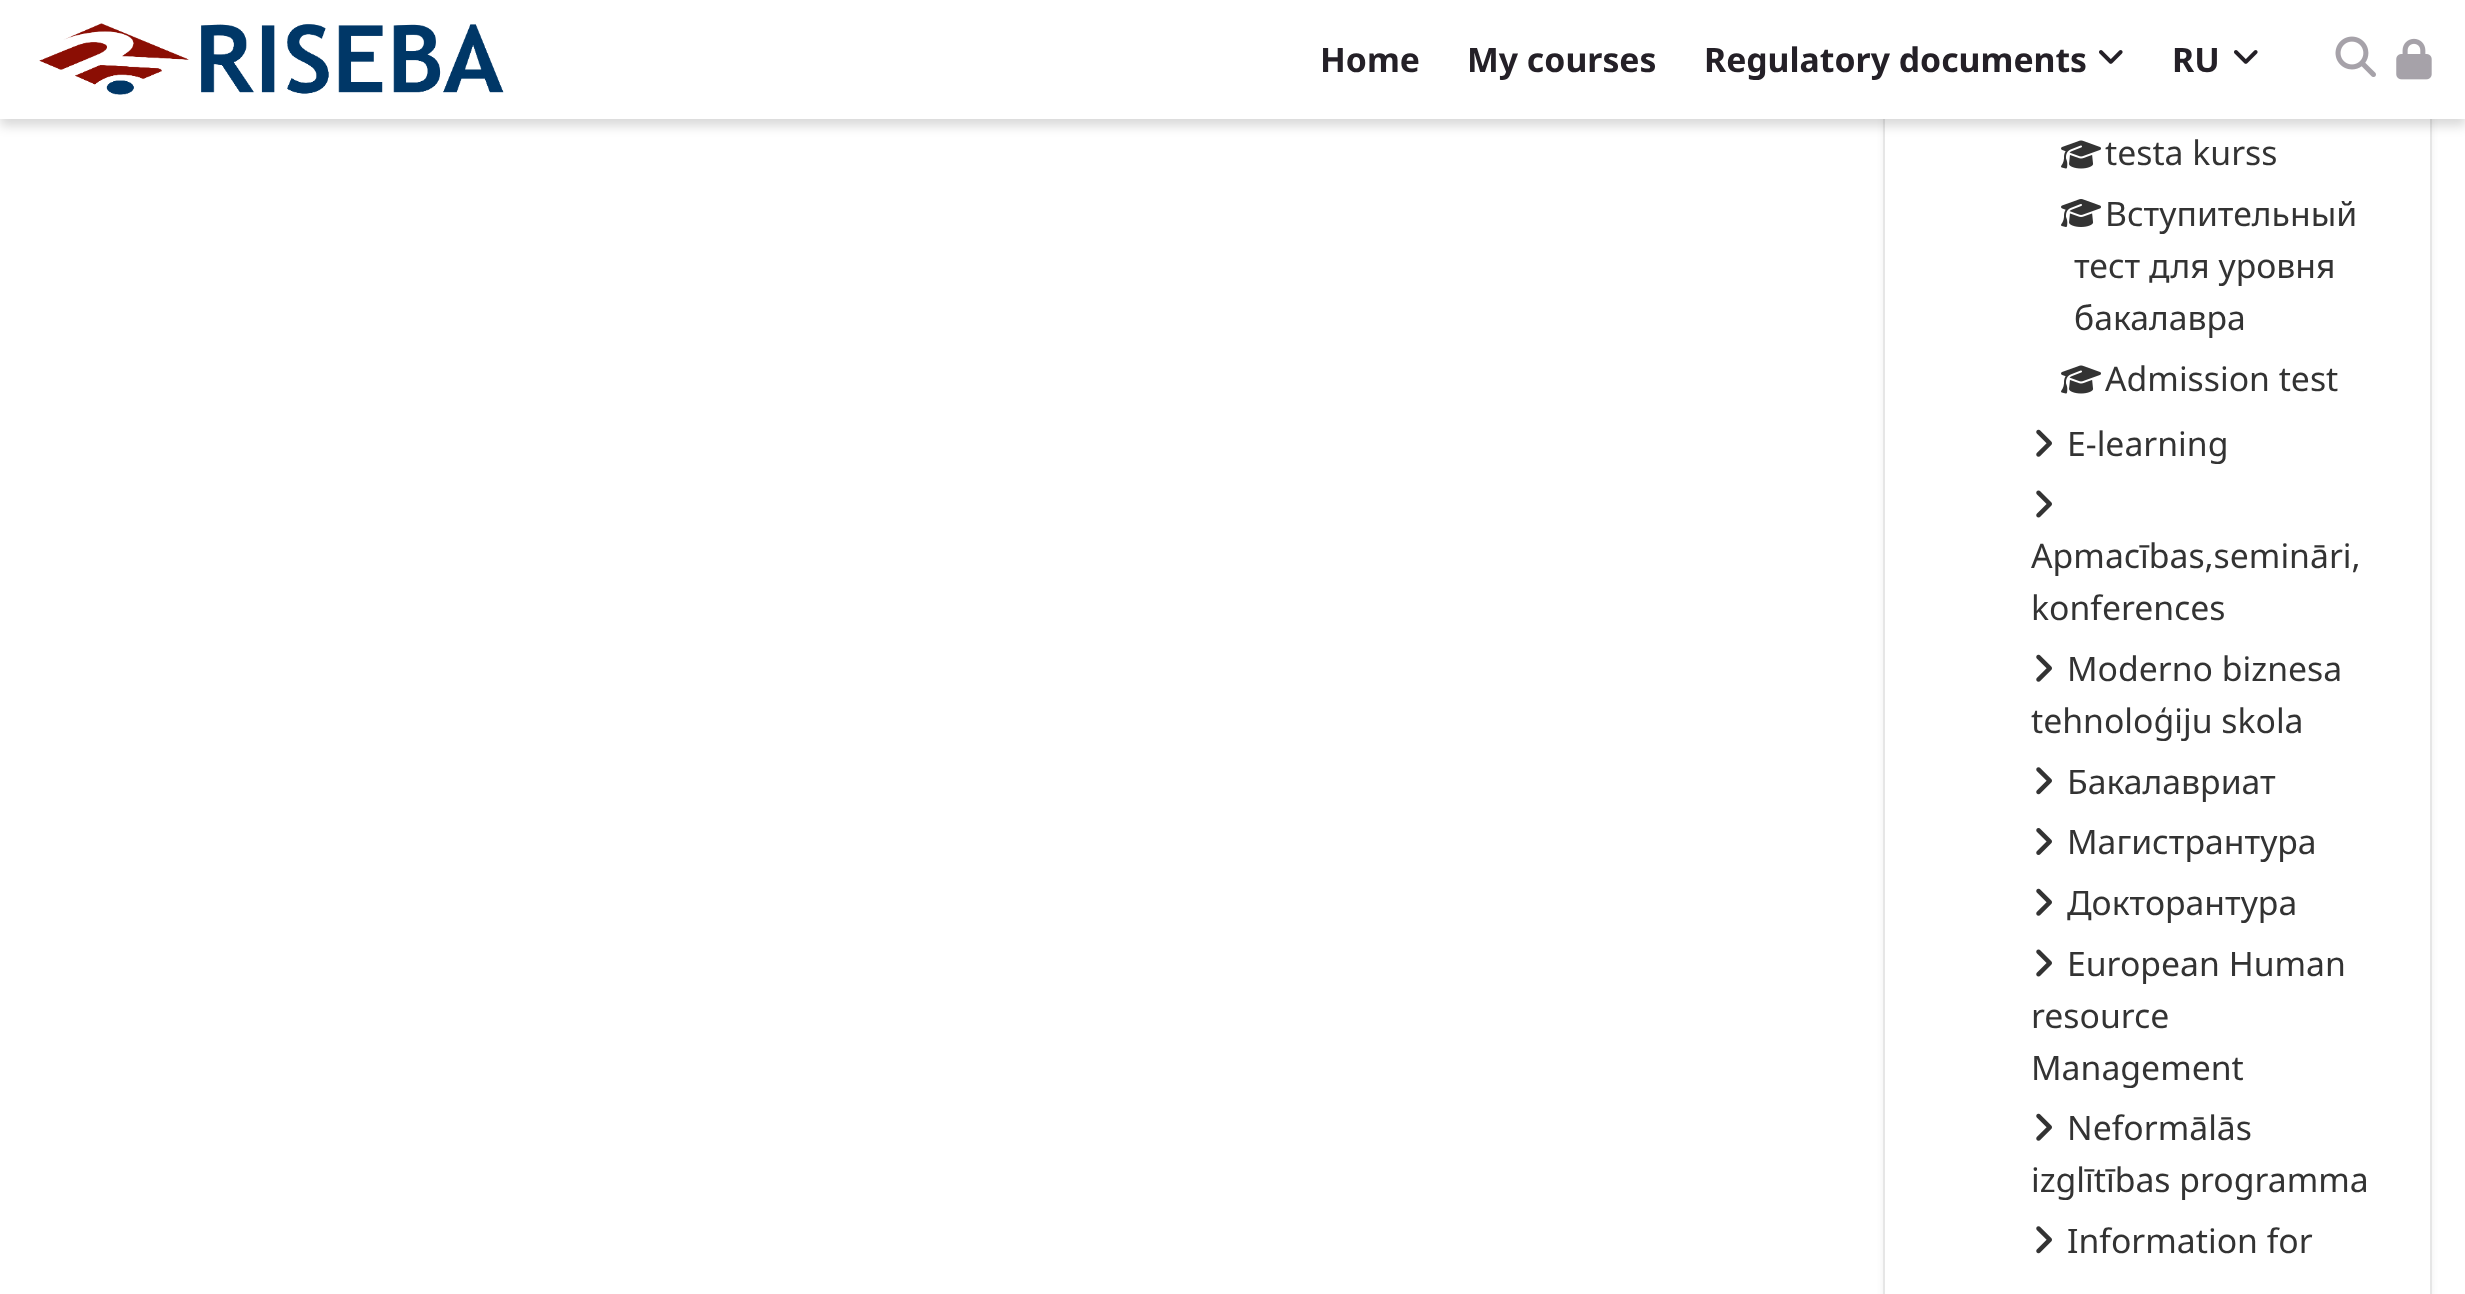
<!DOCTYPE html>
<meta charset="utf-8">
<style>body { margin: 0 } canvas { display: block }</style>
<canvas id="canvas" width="2465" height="1294"></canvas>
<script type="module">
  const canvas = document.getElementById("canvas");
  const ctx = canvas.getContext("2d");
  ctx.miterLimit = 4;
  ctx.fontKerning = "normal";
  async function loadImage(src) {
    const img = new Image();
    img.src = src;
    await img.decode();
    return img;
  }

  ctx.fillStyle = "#ffffff";
  ctx.fillRect(0, 0, 2465, 1294);
  ctx.fillStyle = "rgba(0, 0, 0, 0.06)";
  ctx.filter = "blur(3.5px)";
  ctx.beginPath();
  ctx.roundRect(1883, -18, 549, 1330, 7);
  ctx.fill();
  ctx.filter = "none";
  ctx.fillStyle = "#ffffff";
  ctx.fillRect(1885, 119, 545, 1175);
  ctx.strokeStyle = "#e6e6e6";
  ctx.lineWidth = 2;
  ctx.strokeRect(1884, -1, 547, 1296);
  ctx.drawImage(await loadImage("img5.png"), 2061, 140, 40, 29);
  ctx.fillStyle = "rgba(0, 0, 0, 0.15)";
  ctx.filter = "blur(5.5px)";
  ctx.beginPath();
  ctx.rect(0, 7, 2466, 119);
  ctx.fill();
  ctx.filter = "none";
  ctx.fillStyle = "#ffffff";
  ctx.fillRect(0, 0, 2465, 119);
  ctx.drawImage(await loadImage("img1.png"), 39, 23, 465, 72);
  ctx.font = "bold 33.75px Noto Sans";
  ctx.fillStyle = "#242027";
  ctx.fillText("Home", 1320, 72);
  ctx.fillText("My courses", 1467, 72);
  ctx.fillText("Regulatory documents", 1704, 72);
  ctx.drawImage(await loadImage("img2.png"), 2099, 50, 24, 14);
  ctx.fillText("RU", 2172, 72);
  ctx.drawImage(await loadImage("img2.png"), 2234, 50, 24, 14);
  ctx.drawImage(await loadImage("img3.png"), 2335, 36, 41, 41);
  ctx.drawImage(await loadImage("img4.png"), 2396, 38, 36, 42);
  ctx.font = "33.75px Noto Sans";
  ctx.fillStyle = "#333333";
  ctx.fillText("testa kurss", 2105, 165);
  ctx.drawImage(await loadImage("img6.png"), 2061, 199, 40, 28);
  ctx.fillText("Вступительный", 2105, 226);
  ctx.fillText("тест для уровня", 2074, 278);
  ctx.fillText("бакалавра", 2074, 330);
  ctx.drawImage(await loadImage("img5.png"), 2061, 365, 40, 29);
  ctx.fillText("Admission test", 2105, 391);
  ctx.drawImage(await loadImage("img7.png"), 2036, 429, 16, 28);
  ctx.fillText("E-learning", 2067, 456);
  ctx.drawImage(await loadImage("img8.png"), 2036, 490, 16, 28);
  ctx.fillText("Apmacības,semināri,", 2031, 568);
  ctx.fillText("konferences", 2031, 620);
  ctx.drawImage(await loadImage("img7.png"), 2036, 654, 16, 28);
  ctx.fillText("Moderno biznesa", 2067, 681);
  ctx.fillText("tehnoloģiju skola", 2031, 733);
  ctx.drawImage(await loadImage("img9.png"), 2036, 767, 16, 28);
  ctx.fillText("Бакалавриат", 2067, 794);
  ctx.drawImage(await loadImage("img10.png"), 2036, 828, 16, 27);
  ctx.fillText("Магистрантура", 2067, 854);
  ctx.drawImage(await loadImage("img7.png"), 2036, 888, 16, 28);
  ctx.fillText("Докторантура", 2067, 915);
  ctx.drawImage(await loadImage("img8.png"), 2036, 949, 16, 28);
  ctx.fillText("European Human", 2067, 976);
  ctx.fillText("resource", 2031, 1028);
  ctx.fillText("Management", 2031, 1080);
  ctx.drawImage(await loadImage("img7.png"), 2036, 1113, 16, 28);
  ctx.fillText("Neformālās", 2067, 1140);
  ctx.fillText("izglītības programma", 2031, 1192);
  ctx.drawImage(await loadImage("img9.png"), 2036, 1226, 16, 28);
  ctx.fillText("Information for", 2067, 1253);
</script>
